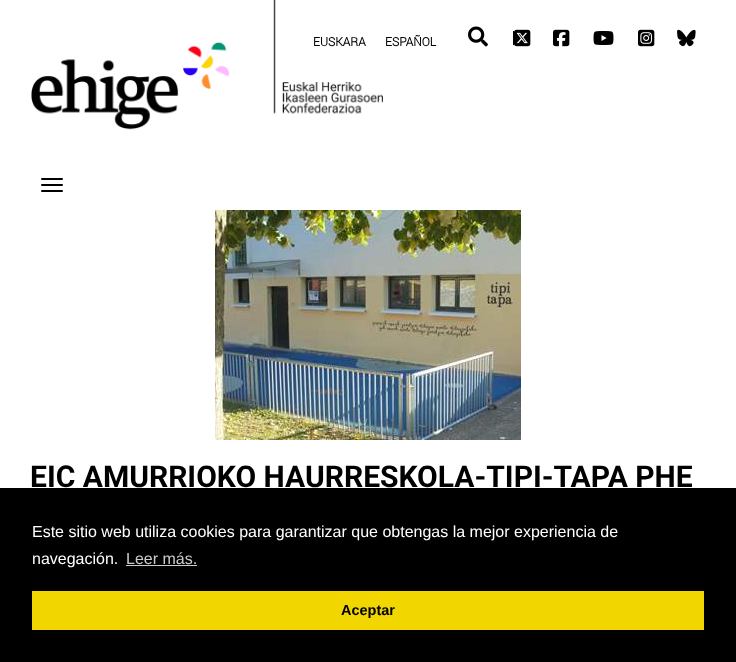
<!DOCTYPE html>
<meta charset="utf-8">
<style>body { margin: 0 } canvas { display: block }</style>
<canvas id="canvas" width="736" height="662"></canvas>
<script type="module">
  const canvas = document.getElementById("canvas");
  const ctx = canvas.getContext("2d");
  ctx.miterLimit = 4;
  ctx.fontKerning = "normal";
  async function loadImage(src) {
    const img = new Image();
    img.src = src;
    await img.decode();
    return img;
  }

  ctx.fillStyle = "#ffffff";
  ctx.fillRect(0, 0, 736, 662);
  ctx.drawImage(await loadImage("img1.png"), 31, 0, 352, 130);
  ctx.font = "bold 12px Roboto";
  ctx.fillStyle = "#000000";
  ctx.fillText("EUSKARA", 313, 46);
  ctx.fillText("ESPAÑOL", 385, 46);
  ctx.drawImage(await loadImage("img2.png"), 468, 26, 20, 21);
  ctx.fillRect(513, 31, 1, 14);
  ctx.drawImage(await loadImage("img3.png"), 514, 29, 17, 18);
  ctx.drawImage(await loadImage("img4.png"), 553, 29, 17, 18);
  ctx.drawImage(await loadImage("img5.png"), 593, 31, 21, 14);
  ctx.drawImage(await loadImage("img6.png"), 638, 29, 17, 18);
  ctx.drawImage(await loadImage("img7.png"), 677, 29, 19, 18);
  ctx.beginPath();
  ctx.roundRect(41, 178, 22, 2, 1);
  ctx.fill();
  ctx.beginPath();
  ctx.roundRect(41, 184, 22, 2, 1);
  ctx.fill();
  ctx.beginPath();
  ctx.roundRect(41, 190, 22, 2, 1);
  ctx.fill();
  ctx.drawImage(await loadImage("img8.png"), 215, 210, 306, 230);
  ctx.font = "bold 30px 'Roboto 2'";
  ctx.fillText("EIC AMURRIOKO HAURRESKOLA-TIPI-TAPA PHE", 30, 487);
  ctx.fillRect(0, 488, 736, 174);
  ctx.font = "16px Liberation Sans";
  ctx.fillStyle = "#ffffff";
  ctx.fillText("Este sitio web utiliza cookies para garantizar que obtengas la mejor experiencia de", 32, 537);
  ctx.fillText("navegación.", 32, 564);
  ctx.fillStyle = "#cccccc";
  ctx.fillText("Leer más.", 126, 564);
  ctx.fillRect(126, 565, 71, 1);
  ctx.fillStyle = "#f1d600";
  ctx.fillRect(32, 591, 672, 39);
  ctx.font = "bold 14.5px Liberation Sans";
  ctx.fillStyle = "#000000";
  ctx.fillText("Aceptar", 341, 615);
</script>
